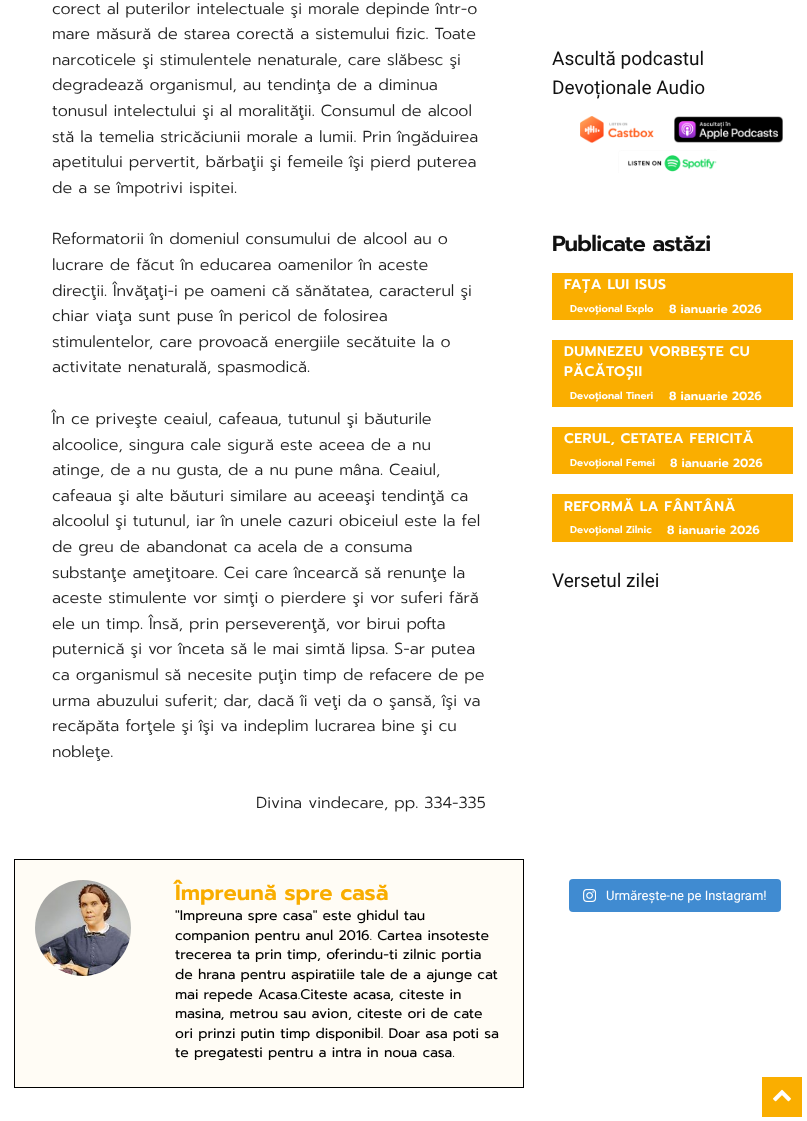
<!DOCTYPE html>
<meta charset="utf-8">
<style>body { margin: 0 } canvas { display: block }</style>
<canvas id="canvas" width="807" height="1121"></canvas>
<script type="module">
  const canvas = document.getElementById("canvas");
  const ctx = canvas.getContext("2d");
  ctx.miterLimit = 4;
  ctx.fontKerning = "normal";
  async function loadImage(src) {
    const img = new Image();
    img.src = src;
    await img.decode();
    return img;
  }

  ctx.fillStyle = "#ffffff";
  ctx.fillRect(0, 0, 807, 1121);
  ctx.font = "300 16px Prompt";
  ctx.fillStyle = "#222222";
  ctx.fillText("corect al puterilor intelectuale şi morale depinde într-o", 52, 14);
  ctx.fillText("mare măsură de starea corectă a sistemului fizic. Toate", 52, 39);
  ctx.fillText("narcoticele şi stimulentele nenaturale, care slăbesc şi", 52, 65);
  ctx.fillText("degradează organismul, au tendinţa de a diminua", 52, 90);
  ctx.fillText("tonusul intelectului şi al moralităţii. Consumul de alcool", 52, 116);
  ctx.fillText("stă la temelia stricăciunii morale a lumii. Prin îngăduirea", 52, 142);
  ctx.fillText("apetitului pervertit, bărbaţii şi femeile îşi pierd puterea", 52, 167);
  ctx.fillText("de a se împotrivi ispitei.", 52, 193);
  ctx.fillText("Reformatorii în domeniul consumului de alcool au o", 52, 244);
  ctx.fillText("lucrare de făcut în educarea oamenilor în aceste", 52, 270);
  ctx.fillText("direcţii. Învăţaţi-i pe oameni că sănătatea, caracterul şi", 52, 296);
  ctx.fillText("chiar viaţa sunt puse în pericol de folosirea", 52, 321);
  ctx.fillText("stimulentelor, care provoacă energiile secătuite la o", 52, 347);
  ctx.fillText("activitate nenaturală, spasmodică.", 52, 372);
  ctx.fillText("În ce priveşte ceaiul, cafeaua, tutunul şi băuturile", 52, 424);
  ctx.fillText("alcoolice, singura cale sigură este aceea de a nu", 52, 450);
  ctx.fillText("atinge, de a nu gusta, de a nu pune mâna. Ceaiul,", 52, 475);
  ctx.fillText("cafeaua şi alte băuturi similare au aceeaşi tendinţă ca", 52, 501);
  ctx.fillText("alcoolul şi tutunul, iar în unele cazuri obiceiul este la fel", 52, 526);
  ctx.fillText("de greu de abandonat ca acela de a consuma", 52, 552);
  ctx.fillText("substanţe ameţitoare. Cei care încearcă să renunţe la", 52, 578);
  ctx.fillText("aceste stimulente vor simţi o pierdere şi vor suferi fără", 52, 603);
  ctx.fillText("ele un timp. Însă, prin perseverenţă, vor birui pofta", 52, 629);
  ctx.fillText("puternică şi vor înceta să le mai simtă lipsa. S-ar putea", 52, 654);
  ctx.fillText("ca organismul să necesite puţin timp de refacere de pe", 52, 680);
  ctx.fillText("urma abuzului suferit; dar, dacă îi veţi da o şansă, îşi va", 52, 706);
  ctx.fillText("recăpăta forţele şi îşi va indeplim lucrarea bine şi cu", 52, 731);
  ctx.fillText("nobleţe.", 52, 757);
  ctx.fillText("Divina vindecare, pp. 334-335", 256, 808);
  ctx.strokeStyle = "#000000";
  ctx.strokeRect(14.5, 859.5, 509, 228);
  ctx.fillStyle = "#fffcf5";
  ctx.fillRect(15, 860, 508, 227);
  ctx.drawImage(await loadImage("img1.png"), 35, 880, 96, 96);
  ctx.font = "600 22px Prompt";
  ctx.fillStyle = "#f9ad00";
  ctx.fillText("Împreună spre casă", 175, 900);
  ctx.font = "14px Prompt";
  ctx.fillStyle = "#000000";
  ctx.fillText("\"Impreuna spre casa\" este ghidul tau", 175, 920);
  ctx.fillText("companion pentru anul 2016. Cartea insoteste", 175, 940);
  ctx.fillText("trecerea ta prin timp, oferindu-ti zilnic portia", 175, 959);
  ctx.fillText("de hrana pentru aspiratiile tale de a ajunge cat", 175, 979);
  ctx.fillText("mai repede Acasa.Citeste acasa, citeste in", 175, 999);
  ctx.fillText("masina, metrou sau avion, citeste ori de cate", 175, 1018);
  ctx.fillText("ori prinzi putin timp disponibil. Doar asa poti sa", 175, 1038);
  ctx.fillText("te pregatesti pentru a intra in noua casa.", 175, 1057);
  ctx.font = "19px Roboto";
  ctx.fillStyle = "#111111";
  ctx.fillText("Ascultă podcastul", 552, 65);
  ctx.fillText("Devoționale Audio", 552, 94);
  ctx.drawImage(await loadImage("img2.png"), 580, 116, 74, 27);
  ctx.drawImage(await loadImage("img3.png"), 674, 116, 109, 27);
  ctx.drawImage(await loadImage("img4.png"), 618, 150, 99, 23);
  ctx.letterSpacing = "-0.6px";
  ctx.font = "600 22px Prompt";
  ctx.fillText("Publicate astăzi", 552, 251);
  ctx.fillStyle = "#faae00";
  ctx.fillRect(552, 273, 241, 47);
  ctx.letterSpacing = "0.5px";
  ctx.font = "600 14px Prompt";
  ctx.fillStyle = "#ffffff";
  ctx.fillText("FAȚA LUI ISUS", 564, 289);
  ctx.letterSpacing = "0px";
  ctx.font = "600 10px Prompt";
  ctx.fillText("Devoțional Explo", 570, 312);
  ctx.font = "600 12px Prompt";
  ctx.fillText("8 ianuarie 2026", 669, 313);
  ctx.fillStyle = "#faae00";
  ctx.fillRect(552, 340, 241, 67);
  ctx.letterSpacing = "0.5px";
  ctx.font = "600 14px Prompt";
  ctx.fillStyle = "#ffffff";
  ctx.fillText("DUMNEZEU VORBEȘTE CU", 564, 356);
  ctx.fillText("PĂCĂTOȘII", 564, 376);
  ctx.letterSpacing = "0px";
  ctx.font = "600 10px Prompt";
  ctx.fillText("Devoțional Tineri", 570, 399);
  ctx.font = "600 12px Prompt";
  ctx.fillText("8 ianuarie 2026", 669, 400);
  ctx.fillStyle = "#faae00";
  ctx.fillRect(552, 427, 241, 47);
  ctx.letterSpacing = "0.5px";
  ctx.font = "600 14px Prompt";
  ctx.fillStyle = "#ffffff";
  ctx.fillText("CERUL, CETATEA FERICITĂ", 564, 443);
  ctx.letterSpacing = "0px";
  ctx.font = "600 10px Prompt";
  ctx.fillText("Devoțional Femei", 570, 466);
  ctx.font = "600 12px Prompt";
  ctx.fillText("8 ianuarie 2026", 670, 467);
  ctx.fillStyle = "#faae00";
  ctx.fillRect(552, 494, 241, 48);
  ctx.letterSpacing = "0.5px";
  ctx.font = "600 14px Prompt";
  ctx.fillStyle = "#ffffff";
  ctx.fillText("REFORMĂ LA FÂNTÂNĂ", 564, 511);
  ctx.letterSpacing = "0px";
  ctx.font = "600 10px Prompt";
  ctx.fillText("Devoțional Zilnic", 570, 533);
  ctx.font = "600 12px Prompt";
  ctx.fillText("8 ianuarie 2026", 667, 534);
  ctx.font = "19px Roboto";
  ctx.fillStyle = "#111111";
  ctx.fillText("Versetul zilei", 552, 587);
  ctx.fillStyle = "#408bd1";
  ctx.beginPath();
  ctx.roundRect(569, 879, 212, 33, 4);
  ctx.fill();
  ctx.drawImage(await loadImage("img5.png"), 583, 889, 13, 13);
  ctx.font = "13px Roboto";
  ctx.fillStyle = "#ffffff";
  ctx.fillText("Urmărește-ne pe Instagram!", 606, 900);
  ctx.fillStyle = "#faae00";
  ctx.fillRect(762, 1077, 40, 40);
  ctx.drawImage(await loadImage("img6.png"), 773, 1089, 18, 13);
</script>
